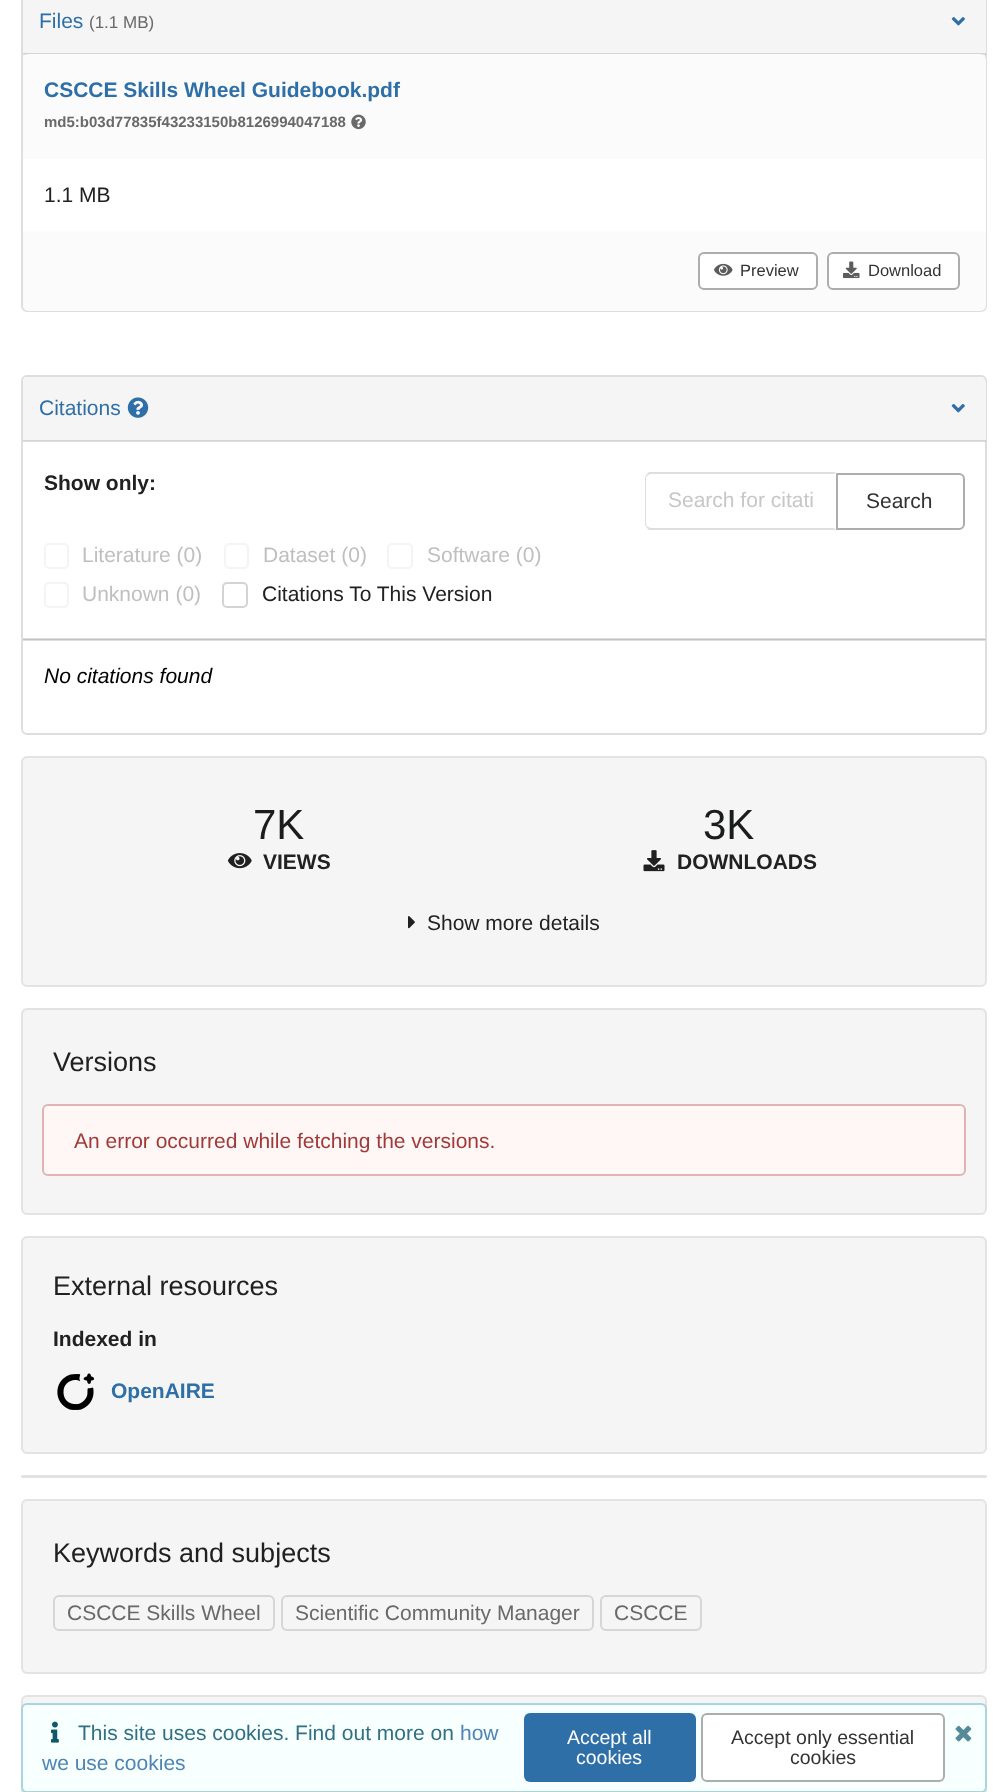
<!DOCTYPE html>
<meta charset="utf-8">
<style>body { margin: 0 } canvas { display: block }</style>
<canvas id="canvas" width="1007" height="1792"></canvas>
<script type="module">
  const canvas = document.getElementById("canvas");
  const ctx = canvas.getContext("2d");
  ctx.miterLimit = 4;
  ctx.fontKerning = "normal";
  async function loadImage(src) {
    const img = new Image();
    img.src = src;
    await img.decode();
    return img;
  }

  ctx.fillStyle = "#ffffff";
  ctx.fillRect(0, 0, 1007, 1792);
  ctx.beginPath();
  ctx.roundRect(22, -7, 964, 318, 5);
  ctx.strokeStyle = "#dedede";
  ctx.lineWidth = 2;
  ctx.stroke();
  ctx.fillStyle = "#f5f5f5";
  ctx.fillRect(23, 0, 963, 54);
  ctx.fillStyle = "rgba(34, 36, 38, 0.15)";
  ctx.fillRect(23, 53, 963, 2);
  ctx.font = "21px Liberation Sans";
  ctx.fillStyle = "#2f6fa7";
  ctx.fillText("Files", 39, 28);
  ctx.font = "17px Liberation Sans";
  ctx.fillStyle = "#696969";
  ctx.fillText("(1.1 MB)", 89, 28);
  ctx.drawImage(await loadImage("img1.png"), 951, 17, 14, 9);
  ctx.fillStyle = "#ffffff";
  ctx.beginPath();
  ctx.roundRect(23, 54, 963, 257, 6);
  ctx.fill();
  ctx.fillStyle = "rgba(226, 226, 228, 0.15)";
  ctx.fillRect(23, 54, 963, 105);
  ctx.font = "bold 21px Liberation Sans";
  ctx.fillStyle = "#2f6fa7";
  ctx.fillText("CSCCE Skills Wheel Guidebook.pdf", 44, 97);
  ctx.font = "bold 15px Liberation Sans";
  ctx.fillStyle = "#696969";
  ctx.fillText("md5:b03d77835f43233150b8126994047188", 44, 127);
  ctx.drawImage(await loadImage("img2.png"), 351, 114, 15, 16);
  ctx.font = "21px Liberation Sans";
  ctx.fillStyle = "#212121";
  ctx.fillText("1.1 MB", 44, 202);
  ctx.fillStyle = "rgba(226, 226, 228, 0.15)";
  ctx.fillRect(23, 231, 963, 80);
  ctx.fillStyle = "#ffffff";
  ctx.beginPath();
  ctx.roundRect(699, 253, 118, 36, 5);
  ctx.fill();
  ctx.strokeStyle = "#adadad";
  ctx.stroke();
  ctx.drawImage(await loadImage("img3.png"), 714, 263, 19, 13);
  ctx.font = "16.5px Liberation Sans";
  ctx.fillStyle = "#333333";
  ctx.fillText("Preview", 740, 276);
  ctx.fillStyle = "#ffffff";
  ctx.beginPath();
  ctx.roundRect(828, 253, 131, 36, 5);
  ctx.fill();
  ctx.stroke();
  ctx.drawImage(await loadImage("img4.png"), 843, 261, 17, 18);
  ctx.fillStyle = "#333333";
  ctx.fillText("Download", 868, 276);
  ctx.beginPath();
  ctx.roundRect(22, 376, 964, 358, 5);
  ctx.strokeStyle = "#dedede";
  ctx.stroke();
  ctx.fillStyle = "#f5f5f5";
  ctx.beginPath();
  ctx.roundRect(23, 377, 963, 64, [6, 6, 0, 0]);
  ctx.fill();
  ctx.fillStyle = "rgba(34, 36, 38, 0.15)";
  ctx.fillRect(23, 440, 963, 2);
  ctx.font = "21px Liberation Sans";
  ctx.fillStyle = "#2f6fa7";
  ctx.fillText("Citations", 39, 415);
  ctx.drawImage(await loadImage("img5.png"), 127, 397, 22, 21);
  ctx.drawImage(await loadImage("img6.png"), 951, 404, 14, 9);
  ctx.font = "bold 21px Liberation Sans";
  ctx.fillStyle = "#212121";
  ctx.fillText("Show only:", 44, 490);
  ctx.beginPath();
  ctx.roundRect(45, 544, 23, 24, 4);
  ctx.strokeStyle = "#f4f4f5";
  ctx.stroke();
  ctx.font = "21px Liberation Sans";
  ctx.fillStyle = "#bfbfbf";
  ctx.fillText("Literature (0)", 82, 562);
  ctx.beginPath();
  ctx.roundRect(225, 544, 23, 24, 4);
  ctx.stroke();
  ctx.fillText("Dataset (0)", 263, 562);
  ctx.beginPath();
  ctx.roundRect(388, 544, 24, 24, 4);
  ctx.stroke();
  ctx.fillText("Software (0)", 427, 562);
  ctx.beginPath();
  ctx.roundRect(45, 583, 23, 24, 4);
  ctx.stroke();
  ctx.fillText("Unknown (0)", 82, 601);
  ctx.beginPath();
  ctx.roundRect(223, 583, 24, 24, 4);
  ctx.strokeStyle = "#d4d4d5";
  ctx.stroke();
  ctx.fillStyle = "#212121";
  ctx.fillText("Citations To This Version", 262, 601);
  ctx.fillStyle = "#dedede";
  ctx.beginPath();
  ctx.moveTo(651, 474);
  ctx.lineTo(648, 475);
  ctx.lineTo(647, 474);
  ctx.lineTo(649, 472);
  ctx.lineTo(836, 472);
  ctx.lineTo(834, 474);
  ctx.closePath();
  ctx.fill();
  ctx.beginPath();
  ctx.moveTo(836, 530);
  ctx.lineTo(649, 530);
  ctx.lineTo(647, 528);
  ctx.lineTo(648, 527);
  ctx.lineTo(651, 528);
  ctx.lineTo(834, 528);
  ctx.closePath();
  ctx.fill();
  ctx.fillStyle = "rgba(34, 36, 38, 0.15)";
  ctx.beginPath();
  ctx.moveTo(645, 478);
  ctx.lineTo(645, 524);
  ctx.bezierCurveTo(645, 525, 646, 527, 647, 528);
  ctx.lineTo(648, 527);
  ctx.bezierCurveTo(647, 526, 646, 525, 646, 524);
  ctx.lineTo(646, 478);
  ctx.bezierCurveTo(646, 477, 647, 476, 648, 475);
  ctx.lineTo(647, 474);
  ctx.bezierCurveTo(646, 475, 645, 477, 645, 478);
  ctx.closePath();
  ctx.fill();
  ctx.fillStyle = "#c7c7c7";
  ctx.fillText("Search for citati", 668, 507);
  ctx.beginPath();
  ctx.roundRect(837, 474, 127, 55, [0, 5, 5, 0]);
  ctx.strokeStyle = "#adadad";
  ctx.stroke();
  ctx.fillStyle = "#333333";
  ctx.fillText("Search", 866, 508);
  ctx.fillStyle = "#ffffff";
  ctx.fillRect(985, 640, 1, 1);
  ctx.fillStyle = "#dedede";
  ctx.fillRect(23, 638, 963, 2);
  ctx.fillStyle = "rgba(34, 36, 38, 0.15)";
  ctx.fillRect(23, 639, 963, 2);
  ctx.font = "italic 21px Liberation Sans";
  ctx.fillStyle = "#000000";
  ctx.fillText("No citations found", 44, 683);
  ctx.fillStyle = "#f5f5f5";
  ctx.beginPath();
  ctx.roundRect(22, 757, 964, 229, 5);
  ctx.fill();
  ctx.strokeStyle = "#e3e3e3";
  ctx.stroke();
  ctx.font = "42px Liberation Sans";
  ctx.fillStyle = "#1b1c1d";
  ctx.fillText("7K", 253, 839);
  ctx.drawImage(await loadImage("img7.png"), 228, 853, 24, 16);
  ctx.font = "bold 21px Liberation Sans";
  ctx.fillStyle = "#212121";
  ctx.fillText("VIEWS", 263, 869);
  ctx.font = "42px Liberation Sans";
  ctx.fillStyle = "#1b1c1d";
  ctx.fillText("3K", 703, 839);
  ctx.drawImage(await loadImage("img8.png"), 643, 850, 22, 22);
  ctx.font = "bold 21px Liberation Sans";
  ctx.fillStyle = "#212121";
  ctx.fillText("DOWNLOADS", 677, 869);
  ctx.drawImage(await loadImage("img9.png"), 408, 916, 7, 13);
  ctx.font = "21px Liberation Sans";
  ctx.fillText("Show more details", 427, 930);
  ctx.fillStyle = "#f5f5f5";
  ctx.beginPath();
  ctx.roundRect(22, 1009, 964, 205, 5);
  ctx.fill();
  ctx.stroke();
  ctx.font = "27px Liberation Sans";
  ctx.fillStyle = "#212121";
  ctx.fillText("Versions", 53, 1071);
  ctx.fillStyle = "#fff6f6";
  ctx.beginPath();
  ctx.roundRect(43, 1105, 922, 70, 5);
  ctx.fill();
  ctx.strokeStyle = "#e0b4b4";
  ctx.stroke();
  ctx.font = "21px Liberation Sans";
  ctx.fillStyle = "#9f3a38";
  ctx.fillText("An error occurred while fetching the versions.", 74, 1148);
  ctx.fillStyle = "#f5f5f5";
  ctx.beginPath();
  ctx.roundRect(22, 1237, 964, 216, 5);
  ctx.fill();
  ctx.strokeStyle = "#e3e3e3";
  ctx.stroke();
  ctx.font = "27px Liberation Sans";
  ctx.fillStyle = "#212121";
  ctx.fillText("External resources", 53, 1295);
  ctx.font = "bold 21px Liberation Sans";
  ctx.fillText("Indexed in", 53, 1346);
  ctx.drawImage(await loadImage("img10.png"), 57, 1373, 37, 37);
  ctx.fillStyle = "#2f6fa7";
  ctx.fillText("OpenAIRE", 111, 1398);
  ctx.fillStyle = "#e3e3e3";
  ctx.beginPath();
  ctx.roundRect(21, 1475, 966, 3, 1.5);
  ctx.fill();
  ctx.fillStyle = "#f5f5f5";
  ctx.beginPath();
  ctx.roundRect(22, 1500, 964, 173, 5);
  ctx.fill();
  ctx.stroke();
  ctx.font = "27px Liberation Sans";
  ctx.fillStyle = "#212121";
  ctx.fillText("Keywords and subjects", 53, 1562);
  ctx.beginPath();
  ctx.roundRect(54, 1596, 220, 34, 5);
  ctx.strokeStyle = "#d5d6d6";
  ctx.stroke();
  ctx.font = "21px Liberation Sans";
  ctx.fillStyle = "#696969";
  ctx.fillText("CSCCE Skills Wheel", 67, 1620);
  ctx.beginPath();
  ctx.roundRect(282, 1596, 311, 34, 5);
  ctx.stroke();
  ctx.fillText("Scientific Community Manager", 295, 1620);
  ctx.beginPath();
  ctx.roundRect(601, 1596, 100, 34, 5);
  ctx.stroke();
  ctx.fillText("CSCCE", 614, 1620);
  ctx.fillStyle = "#f5f5f5";
  ctx.beginPath();
  ctx.roundRect(22, 1696, 964, 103, 5);
  ctx.fill();
  ctx.strokeStyle = "#e3e3e3";
  ctx.stroke();
  ctx.fillStyle = "#f8ffff";
  ctx.beginPath();
  ctx.roundRect(22, 1704, 964, 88, 5);
  ctx.fill();
  ctx.strokeStyle = "#a9d5de";
  ctx.stroke();
  ctx.drawImage(await loadImage("img11.png"), 51, 1721, 8, 22);
  ctx.fillStyle = "#317082";
  ctx.fillText("This site uses cookies. Find out more on", 78, 1740);
  ctx.fillStyle = "#4d85b4";
  ctx.fillText("how", 460, 1740);
  ctx.fillText("we use cookies", 42, 1770);
  ctx.fillStyle = "#2f6fa7";
  ctx.beginPath();
  ctx.roundRect(524, 1713, 172, 69, 6);
  ctx.fill();
  ctx.font = "19.5px Liberation Sans";
  ctx.fillStyle = "#ffffff";
  ctx.fillText("Accept all", 567, 1744);
  ctx.fillText("cookies", 576, 1764);
  ctx.beginPath();
  ctx.roundRect(702, 1714, 242, 67, 5);
  ctx.fill();
  ctx.strokeStyle = "#adadad";
  ctx.stroke();
  ctx.fillStyle = "#333333";
  ctx.fillText("Accept only essential", 731, 1744);
  ctx.fillText("cookies", 790, 1764);
  ctx.drawImage(await loadImage("img12.png"), 955, 1725, 17, 17);
</script>
